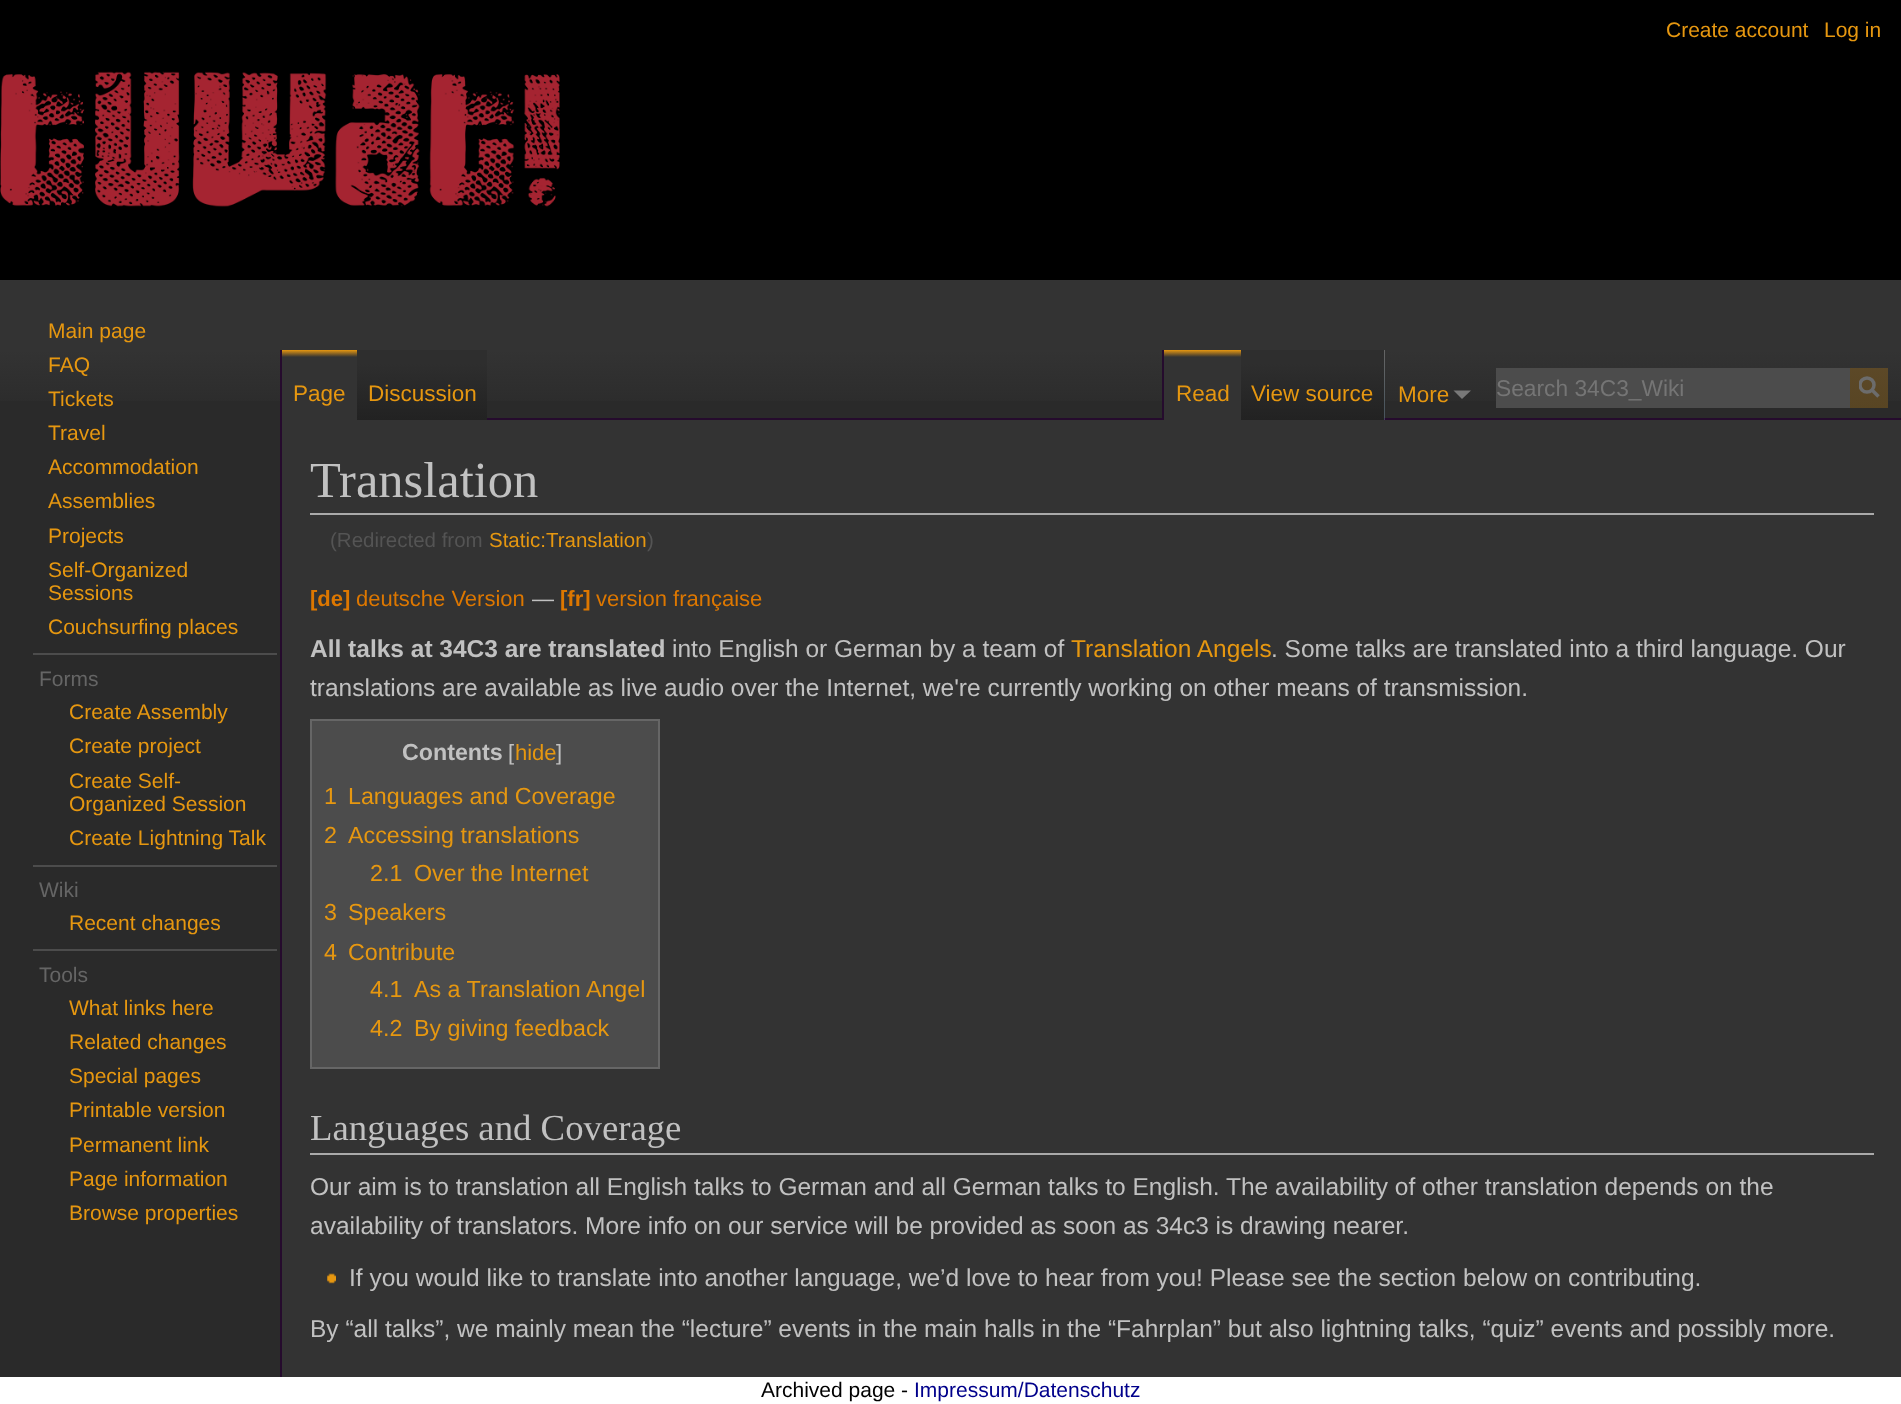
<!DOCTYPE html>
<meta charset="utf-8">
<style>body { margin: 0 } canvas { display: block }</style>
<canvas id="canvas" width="1901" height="1404"></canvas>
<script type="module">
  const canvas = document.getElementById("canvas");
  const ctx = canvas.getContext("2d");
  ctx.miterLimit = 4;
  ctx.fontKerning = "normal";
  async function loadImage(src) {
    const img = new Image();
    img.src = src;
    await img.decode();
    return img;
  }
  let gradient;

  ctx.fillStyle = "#2a2a2a";
  ctx.fillRect(0, 0, 1901, 1404);
  ctx.fillStyle = "#000000";
  ctx.fillRect(0, 0, 1901, 280);
  ctx.font = "21px Liberation Sans";
  ctx.fillStyle = "#e69710";
  ctx.fillText("Create account", 1666, 37);
  ctx.fillText("Log in", 1824, 37);
  gradient = ctx.createLinearGradient(951, 280, 951, 420);
  gradient.addColorStop(0.5, "#333333");
  gradient.addColorStop(1, "#2a2a2a");
  ctx.fillStyle = gradient;
  ctx.fillRect(0, 280, 1901, 121);
  gradient = ctx.createLinearGradient(319, 350, 319, 420);
  gradient.addColorStop(0, "#e69710");
  gradient.addColorStop(0.1, "#333333");
  ctx.fillStyle = gradient;
  ctx.fillRect(282, 350, 75, 70);
  ctx.font = "22.5px Liberation Sans";
  ctx.fillStyle = "#e69710";
  ctx.fillText("Page", 293, 401);
  gradient = ctx.createLinearGradient(422, 350, 422, 420);
  gradient.addColorStop(0.2, "#2e2e2e");
  gradient.addColorStop(1, "#222222");
  ctx.fillStyle = gradient;
  ctx.fillRect(357, 350, 130, 70);
  ctx.fillStyle = "#e69710";
  ctx.fillText("Discussion", 368, 401);
  ctx.fillStyle = "#250b2d";
  ctx.fillRect(487, 418, 1414, 2);
  ctx.fillRect(1162, 350, 2, 70);
  ctx.drawImage(await loadImage("img1.png"), 1384, 350, 1, 70);
  gradient = ctx.createLinearGradient(1202, 350, 1202, 420);
  gradient.addColorStop(0, "#e69710");
  gradient.addColorStop(0.1, "#333333");
  ctx.fillStyle = gradient;
  ctx.fillRect(1164, 350, 77, 70);
  ctx.fillStyle = "#e69710";
  ctx.fillText("Read", 1176, 401);
  gradient = ctx.createLinearGradient(1313, 350, 1313, 420);
  gradient.addColorStop(0.2, "#2e2e2e");
  gradient.addColorStop(1, "#222222");
  ctx.fillStyle = gradient;
  ctx.fillRect(1241, 350, 143, 70);
  ctx.fillStyle = "#e69710";
  ctx.fillText("View source", 1251, 401);
  ctx.fillText("More", 1398, 402);
  ctx.fillStyle = "#797979";
  ctx.beginPath();
  ctx.moveTo(1471, 390.5);
  ctx.lineTo(1462, 399);
  ctx.lineTo(1453.5, 390.5);
  ctx.closePath();
  ctx.fill();
  ctx.fillStyle = "#4c4c4c";
  ctx.fillRect(1496, 368, 354, 40);
  ctx.font = "22.75px Liberation Sans";
  ctx.fillStyle = "#757575";
  ctx.fillText("Search 34C3_Wiki", 1496, 396);
  gradient = ctx.createLinearGradient(951, 280, 951, 420);
  gradient.addColorStop(0.5, "#5e4a29");
  gradient.addColorStop(1, "#574422");
  ctx.fillStyle = gradient;
  ctx.fillRect(1850, 368, 38, 40);
  ctx.beginPath();
  ctx.moveTo(1878.5, 396.5);
  ctx.lineTo(1871.5, 389.5);
  ctx.strokeStyle = "#6c6c6c";
  ctx.lineWidth = 3.5;
  ctx.stroke();
  ctx.save();
  ctx.beginPath();
  ctx.rect(1859, 376, 21, 23);
  ctx.clip();
  ctx.beginPath();
  ctx.arc(1867, 385, 7, 0, Math.PI * 2);
  ctx.stroke();
  ctx.restore();
  ctx.drawImage(await loadImage("img2.png"), 0, 71, 560, 136);
  ctx.font = "21px Liberation Sans";
  ctx.fillStyle = "#e69710";
  ctx.fillText("Main page", 48, 338);
  ctx.fillText("FAQ", 48, 372);
  ctx.fillText("Tickets", 48, 406);
  ctx.fillText("Travel", 48, 440);
  ctx.fillText("Accommodation", 48, 474);
  ctx.fillText("Assemblies", 48, 508);
  ctx.fillText("Projects", 48, 543);
  ctx.fillText("Self-Organized", 48, 577);
  ctx.fillText("Sessions", 48, 600);
  ctx.fillText("Couchsurfing places", 48, 634);
  ctx.fillStyle = "#4c4c4c";
  ctx.fillRect(33, 653, 244, 2);
  ctx.fillStyle = "#656565";
  ctx.fillText("Forms", 39, 686);
  ctx.fillStyle = "#e69710";
  ctx.fillText("Create Assembly", 69, 719);
  ctx.fillText("Create project", 69, 753);
  ctx.fillText("Create Self-", 69, 788);
  ctx.fillText("Organized Session", 69, 811);
  ctx.fillText("Create Lightning Talk", 69, 845);
  ctx.fillStyle = "#4c4c4c";
  ctx.fillRect(33, 865, 244, 2);
  ctx.fillStyle = "#656565";
  ctx.fillText("Wiki", 39, 897);
  ctx.fillStyle = "#e69710";
  ctx.fillText("Recent changes", 69, 930);
  ctx.fillStyle = "#4c4c4c";
  ctx.fillRect(33, 949, 244, 2);
  ctx.fillStyle = "#656565";
  ctx.fillText("Tools", 39, 982);
  ctx.fillStyle = "#e69710";
  ctx.fillText("What links here", 69, 1015);
  ctx.fillText("Related changes", 69, 1049);
  ctx.fillText("Special pages", 69, 1083);
  ctx.fillText("Printable version", 69, 1117);
  ctx.fillText("Permanent link", 69, 1152);
  ctx.fillText("Page information", 69, 1186);
  ctx.fillText("Browse properties", 69, 1220);
  ctx.fillStyle = "#333333";
  ctx.fillRect(282, 420, 1619, 957);
  ctx.fillStyle = "#250b2d";
  ctx.fillRect(280, 350, 2, 1027);
  ctx.fillStyle = "#aaaaaa";
  ctx.fillRect(310, 513, 1564, 2);
  ctx.font = "50.5px Liberation Serif";
  ctx.fillStyle = "#c1c1c1";
  ctx.fillText("Translation", 310, 497);
  ctx.font = "20.5px Liberation Sans";
  ctx.fillStyle = "#545454";
  ctx.fillText("(Redirected from", 330, 547);
  ctx.fillStyle = "#e69710";
  ctx.fillText("Static:Translation", 489, 547);
  ctx.fillStyle = "#545454";
  ctx.fillText(")", 647, 547);
  ctx.font = "bold 22px Liberation Sans";
  ctx.fillStyle = "#dd7700";
  ctx.fillText("[de]", 310, 606);
  ctx.font = "22px Liberation Sans";
  ctx.fillText("deutsche Version", 356, 606);
  ctx.fillStyle = "#c1c1c1";
  ctx.fillText("―", 532, 606);
  ctx.font = "bold 22px Liberation Sans";
  ctx.fillStyle = "#dd7700";
  ctx.fillText("[fr]", 560, 606);
  ctx.font = "22px Liberation Sans";
  ctx.fillText("version française", 596, 606);
  ctx.font = "bold 24.5px Liberation Sans";
  ctx.fillStyle = "#c1c1c1";
  ctx.fillText("All talks at 34C3 are translated", 310, 657);
  ctx.font = "24.5px Liberation Sans";
  ctx.fillText("into English or German by a team of", 672, 657);
  ctx.fillStyle = "#e69710";
  ctx.fillText("Translation Angels", 1071, 657);
  ctx.fillStyle = "#c1c1c1";
  ctx.fillText(". Some talks are translated into a third language. Our", 1271, 657);
  ctx.fillText("translations are available as live audio over the Internet, we're currently working on other means of transmission.", 310, 696);
  ctx.fillStyle = "#4c4c4c";
  ctx.beginPath();
  ctx.rect(311, 720, 348, 348);
  ctx.fill();
  ctx.strokeStyle = "#666666";
  ctx.lineWidth = 2;
  ctx.stroke();
  ctx.font = "bold 23.25px Liberation Sans";
  ctx.fillStyle = "#c1c1c1";
  ctx.fillText("Contents", 402, 760);
  ctx.font = "22px Liberation Sans";
  ctx.fillText("[", 508, 760);
  ctx.fillStyle = "#e69710";
  ctx.fillText("hide", 515, 760);
  ctx.fillStyle = "#c1c1c1";
  ctx.fillText("]", 556, 760);
  ctx.font = "23.25px Liberation Sans";
  ctx.fillStyle = "#e69710";
  ctx.fillText("1", 324, 804);
  ctx.fillText("Languages and Coverage", 348, 804);
  ctx.fillText("2", 324, 843);
  ctx.fillText("Accessing translations", 348, 843);
  ctx.fillText("2.1", 370, 881);
  ctx.fillText("Over the Internet", 414, 881);
  ctx.fillText("3", 324, 920);
  ctx.fillText("Speakers", 348, 920);
  ctx.fillText("4", 324, 960);
  ctx.fillText("Contribute", 348, 960);
  ctx.fillText("4.1", 370, 997);
  ctx.fillText("As a Translation Angel", 414, 997);
  ctx.fillText("4.2", 370, 1036);
  ctx.fillText("By giving feedback", 414, 1036);
  ctx.fillStyle = "#aaaaaa";
  ctx.fillRect(310, 1153, 1564, 2);
  ctx.font = "36.75px Liberation Serif";
  ctx.fillStyle = "#c1c1c1";
  ctx.fillText("Languages and Coverage", 310, 1140);
  ctx.font = "24.5px Liberation Sans";
  ctx.fillText("Our aim is to translation all English talks to German and all German talks to English. The availability of other translation depends on the", 310, 1195);
  ctx.fillText("availability of translators. More info on our service will be provided as soon as 34c3 is drawing nearer.", 310, 1234);
  ctx.drawImage(await loadImage("img3.png"), 327, 1273, 9, 11);
  ctx.fillText("If you would like to translate into another language, we’d love to hear from you! Please see the section below on contributing.", 349, 1286);
  ctx.fillText("By “all talks”, we mainly mean the “lecture” events in the main halls in the “Fahrplan” but also lightning talks, “quiz” events and possibly more.", 310, 1337);
  ctx.fillStyle = "#ffffff";
  ctx.fillRect(0, 1377, 1901, 27);
  ctx.font = "21px Liberation Sans";
  ctx.fillStyle = "#000000";
  ctx.fillText("Archived page -", 761, 1397);
  ctx.fillStyle = "#00008b";
  ctx.fillText("Impressum/Datenschutz", 914, 1397);
</script>
